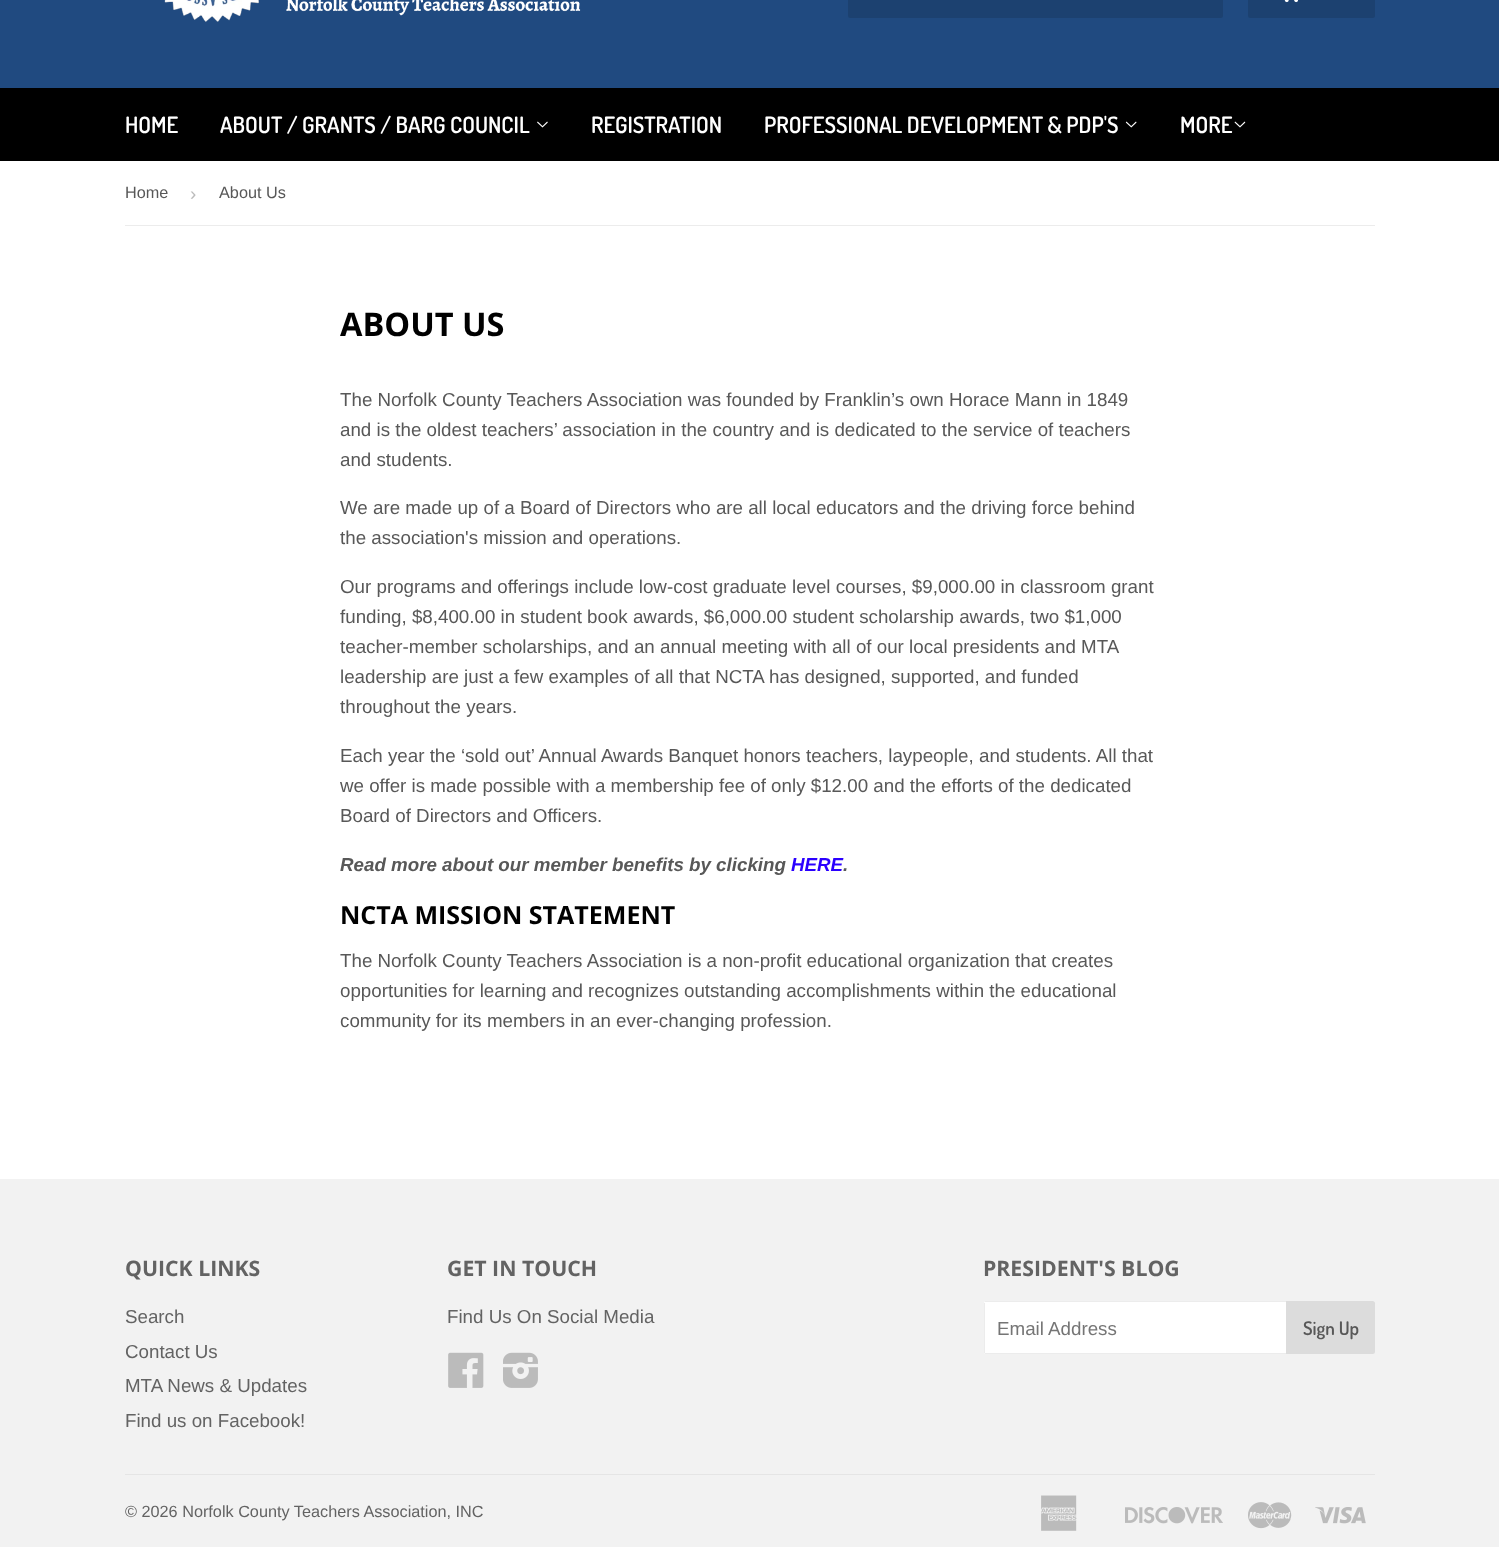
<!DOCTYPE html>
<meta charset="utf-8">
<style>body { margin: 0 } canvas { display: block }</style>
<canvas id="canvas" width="1499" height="1547"></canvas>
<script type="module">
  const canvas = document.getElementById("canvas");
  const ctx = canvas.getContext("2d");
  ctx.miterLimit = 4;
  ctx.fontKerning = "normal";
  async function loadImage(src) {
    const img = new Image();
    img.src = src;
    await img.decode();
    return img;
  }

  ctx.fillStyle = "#ffffff";
  ctx.fillRect(0, 0, 1499, 1547);
  ctx.fillStyle = "#204a80";
  ctx.fillRect(0, 0, 1499, 88);
  ctx.drawImage(await loadImage("img1.png"), 164, 0, 417, 22);
  ctx.fillStyle = "#1c4170";
  ctx.beginPath();
  ctx.roundRect(848, -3, 375, 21, 2.5);
  ctx.fill();
  ctx.beginPath();
  ctx.roundRect(1248, -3, 127, 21, 2.5);
  ctx.fill();
  ctx.drawImage(await loadImage("img2.png"), 1284, 0, 14, 3);
  ctx.fillStyle = "#000000";
  ctx.fillRect(0, 88, 1499, 73);
  ctx.font = "600 22.5px Dosis";
  ctx.fillStyle = "#ffffff";
  ctx.fillText("HOME", 125, 133);
  ctx.fillText("ABOUT / GRANTS / BARG COUNCIL", 220, 133);
  ctx.drawImage(await loadImage("img3.png"), 537, 121, 11, 7);
  ctx.fillText("REGISTRATION", 591, 133);
  ctx.fillText("PROFESSIONAL DEVELOPMENT & PDP'S", 764, 133);
  ctx.drawImage(await loadImage("img4.png"), 1125, 121, 12, 7);
  ctx.fillText("MORE", 1180, 133);
  ctx.drawImage(await loadImage("img5.png"), 1234, 121, 12, 7);
  ctx.fillStyle = "#ececec";
  ctx.fillRect(125, 225, 1250, 1);
  ctx.font = "16.25px Liberation Sans";
  ctx.fillStyle = "#585858";
  ctx.fillText("Home", 125, 198);
  ctx.font = "18.75px Liberation Sans";
  ctx.fillStyle = "#bbbbbb";
  ctx.fillText("›", 190, 200);
  ctx.font = "16.25px Liberation Sans";
  ctx.fillStyle = "#585858";
  ctx.fillText("About Us", 219, 198);
  ctx.font = "bold 32.5px Open Sans";
  ctx.fillStyle = "#000000";
  ctx.fillText("ABOUT US", 340, 336);
  ctx.font = "18.75px Liberation Sans";
  ctx.fillStyle = "#585858";
  ctx.fillText("The Norfolk County Teachers Association was founded by Franklin’s own Horace Mann in 1849", 340, 406);
  ctx.fillText("and is the oldest teachers’ association in the country and is dedicated to the service of teachers", 340, 436);
  ctx.fillText("and students.", 340, 466);
  ctx.fillText("We are made up of a Board of Directors who are all local educators and the driving force behind", 340, 514);
  ctx.fillText("the association's mission and operations.", 340, 544);
  ctx.fillText("Our programs and offerings include low-cost graduate level courses, $9,000.00 in classroom grant", 340, 593);
  ctx.fillText("funding, $8,400.00 in student book awards, $6,000.00 student scholarship awards, two $1,000", 340, 623);
  ctx.fillText("teacher-member scholarships, and an annual meeting with all of our local presidents and MTA", 340, 653);
  ctx.fillText("leadership are just a few examples of all that NCTA has designed, supported, and funded", 340, 683);
  ctx.fillText("throughout the years.", 340, 713);
  ctx.fillText("Each year the ‘sold out’ Annual Awards Banquet honors teachers, laypeople, and students. All that", 340, 762);
  ctx.fillText("we offer is made possible with a membership fee of only $12.00 and the efforts of the dedicated", 340, 792);
  ctx.fillText("Board of Directors and Officers.", 340, 822);
  ctx.font = "italic bold 18.75px Liberation Sans";
  ctx.fillText("Read more about our member benefits by clicking", 340, 871);
  ctx.fillStyle = "#2b00ff";
  ctx.fillText("HERE", 791, 871);
  ctx.fillStyle = "#585858";
  ctx.fillText(".", 843, 871);
  ctx.font = "bold 25px Open Sans";
  ctx.fillStyle = "#000000";
  ctx.fillText("NCTA MISSION STATEMENT", 340, 924);
  ctx.font = "18.75px Liberation Sans";
  ctx.fillStyle = "#585858";
  ctx.fillText("The Norfolk County Teachers Association is a non-profit educational organization that creates", 340, 967);
  ctx.fillText("opportunities for learning and recognizes outstanding accomplishments within the educational", 340, 997);
  ctx.fillText("community for its members in an ever-changing profession.", 340, 1027);
  ctx.fillStyle = "#f2f2f2";
  ctx.fillRect(0, 1179, 1499, 368);
  ctx.font = "bold 21.25px Open Sans";
  ctx.fillStyle = "#636363";
  ctx.fillText("QUICK LINKS", 125, 1276);
  ctx.font = "18.75px Liberation Sans";
  ctx.fillText("Search", 125, 1323);
  ctx.fillText("Contact Us", 125, 1358);
  ctx.fillText("MTA News & Updates", 125, 1392);
  ctx.fillText("Find us on Facebook!", 125, 1427);
  ctx.font = "bold 21.25px Open Sans";
  ctx.fillText("GET IN TOUCH", 447, 1276);
  ctx.font = "18.75px Liberation Sans";
  ctx.fillText("Find Us On Social Media", 447, 1323);
  ctx.drawImage(await loadImage("img6.png"), 448, 1352, 36, 36);
  ctx.drawImage(await loadImage("img7.png"), 503, 1352, 35, 36);
  ctx.font = "bold 21.25px Open Sans";
  ctx.fillText("PRESIDENT'S BLOG", 983, 1276);
  ctx.fillStyle = "#ffffff";
  ctx.beginPath();
  ctx.roundRect(984, 1301, 302, 53, [2.5, 0, 0, 2.5]);
  ctx.fill();
  ctx.fillStyle = "#ececec";
  ctx.fillRect(985, 1301, 301, 1);
  ctx.fillRect(985, 1353, 301, 1);
  ctx.fillRect(984, 1303, 1, 50);
  ctx.font = "18.75px Liberation Sans";
  ctx.fillStyle = "#757575";
  ctx.fillText("Email Address", 997, 1335);
  ctx.fillStyle = "#dcdcdc";
  ctx.beginPath();
  ctx.roundRect(1286, 1301, 89, 53, [0, 2.5, 2.5, 0]);
  ctx.fill();
  ctx.font = "600 18.75px Dosis";
  ctx.fillStyle = "#585858";
  ctx.fillText("Sign Up", 1303, 1335);
  ctx.fillStyle = "#e5e5e5";
  ctx.fillRect(125, 1474, 1250, 1);
  ctx.font = "16.25px Liberation Sans";
  ctx.fillStyle = "#636363";
  ctx.fillText("© 2026 Norfolk County Teachers Association, INC", 125, 1517);
  ctx.drawImage(await loadImage("img8.png"), 1041, 1495, 36, 36);
  ctx.drawImage(await loadImage("img9.png"), 1125, 1507, 98, 17);
  ctx.drawImage(await loadImage("img10.png"), 1248, 1502, 44, 27);
  ctx.drawImage(await loadImage("img11.png"), 1315, 1507, 51, 17);
</script>
